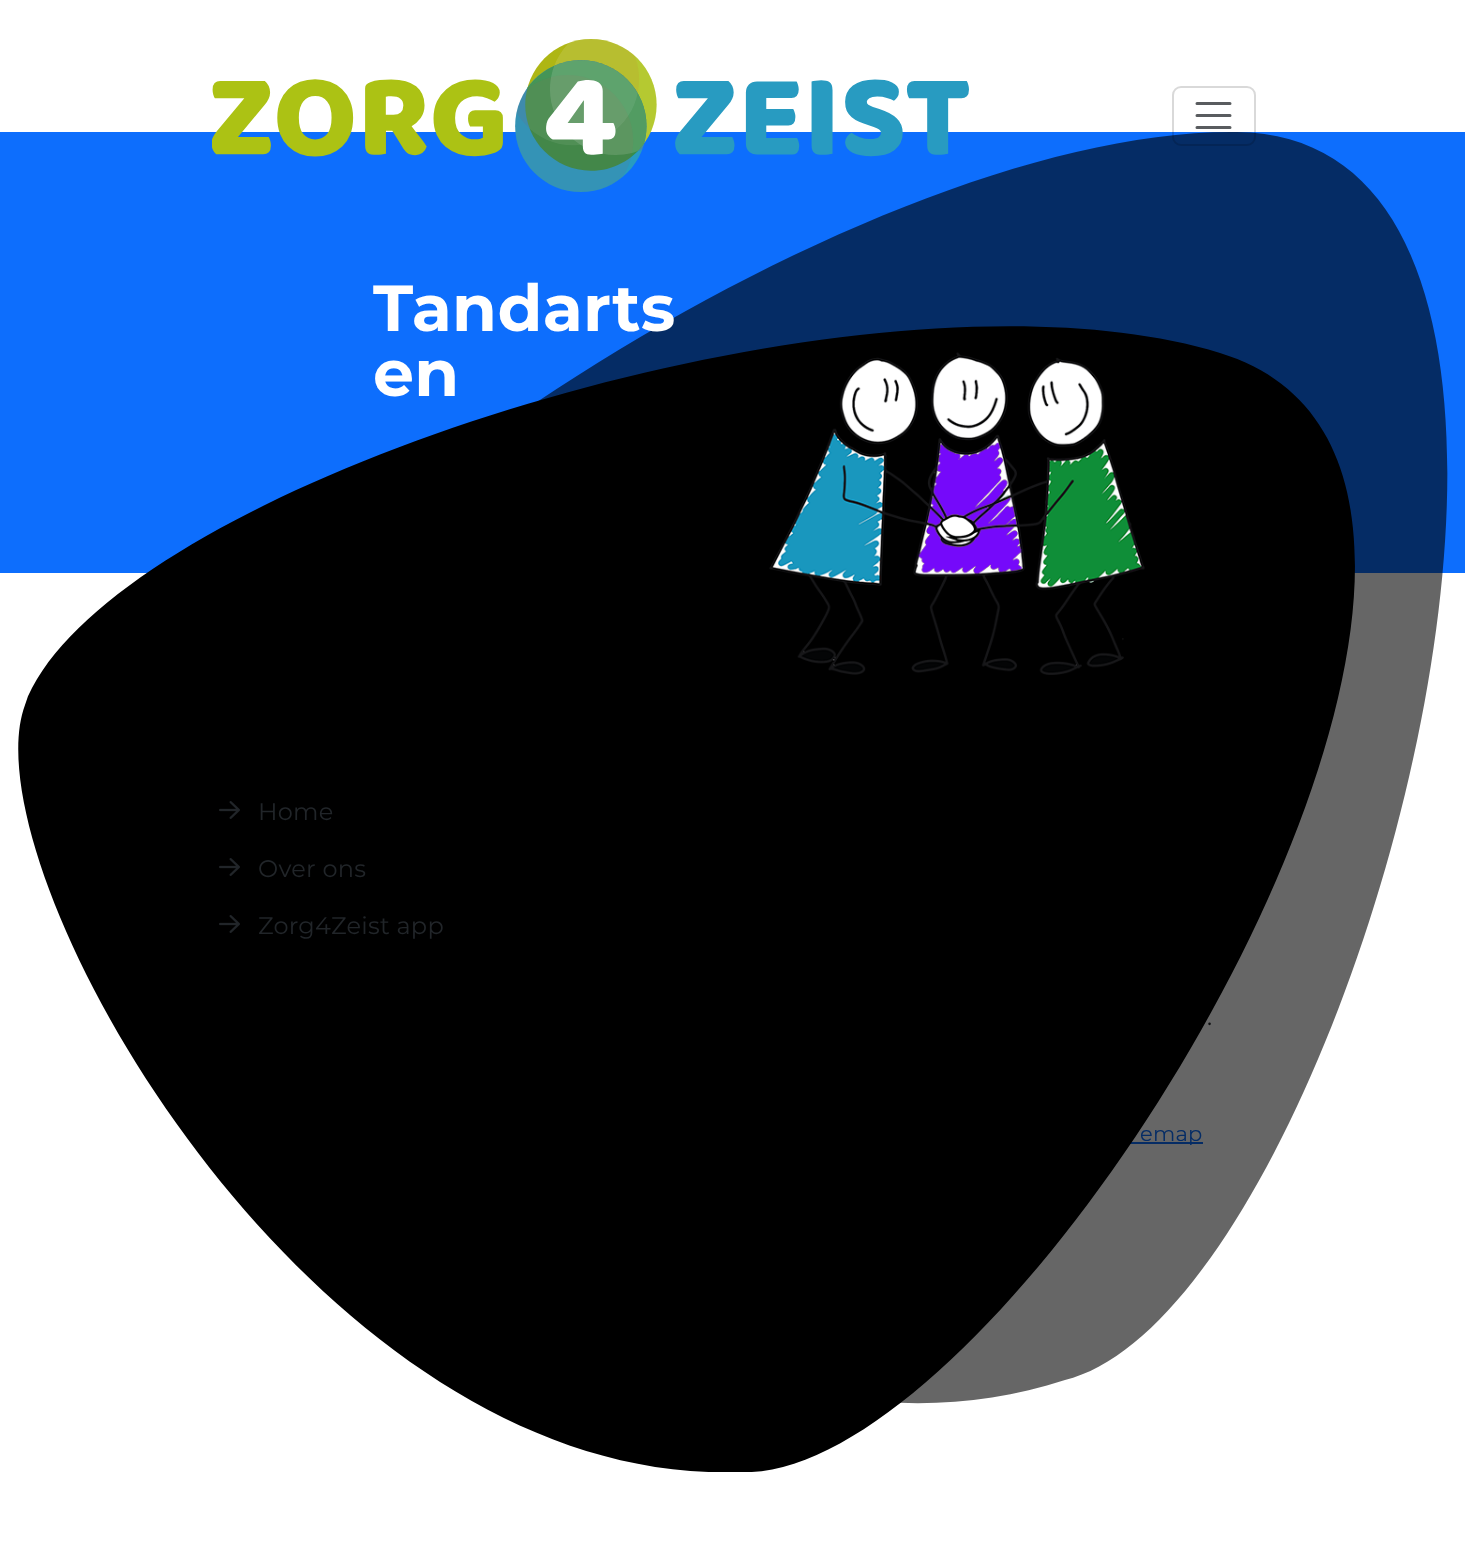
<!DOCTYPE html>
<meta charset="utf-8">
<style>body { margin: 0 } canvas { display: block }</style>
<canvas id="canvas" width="1465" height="1564"></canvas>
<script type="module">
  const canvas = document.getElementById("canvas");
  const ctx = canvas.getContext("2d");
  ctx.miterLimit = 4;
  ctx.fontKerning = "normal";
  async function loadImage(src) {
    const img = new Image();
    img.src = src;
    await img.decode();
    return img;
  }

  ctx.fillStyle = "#ffffff";
  ctx.fillRect(0, 0, 1465, 1564);
  ctx.fillStyle = "#0d6efd";
  ctx.fillRect(0, 132, 1465, 441);
  ctx.drawImage(await loadImage("img1.png"), 212, 39, 757, 153);
  ctx.beginPath();
  ctx.roundRect(1173, 87, 82, 58, 8);
  ctx.strokeStyle = "rgba(0, 0, 0, 0.15)";
  ctx.lineWidth = 2;
  ctx.stroke();
  ctx.beginPath();
  ctx.moveTo(1197, 103.5);
  ctx.lineTo(1230, 103.5);
  ctx.moveTo(1197, 115.5);
  ctx.lineTo(1230, 115.5);
  ctx.moveTo(1197, 127.5);
  ctx.lineTo(1230, 127.5);
  ctx.strokeStyle = "#595c5f";
  ctx.lineWidth = 3;
  ctx.lineCap = "round";
  ctx.stroke();
  ctx.letterSpacing = "0.25px";
  ctx.font = "24px Montserrat";
  ctx.fillStyle = "#212529";
  ctx.fillText(".", 1207, 1025);
  ctx.fillStyle = "#0d6efd";
  ctx.fillRect(1130, 1142, 73, 2);
  ctx.font = "21px Montserrat";
  ctx.fillText("emap", 1140, 1141);
  ctx.save();
  ctx.beginPath();
  ctx.rect(18, 132, 1430, 1340);
  ctx.clip();
  ctx.fillStyle = "#000000";
  ctx.beginPath();
  ctx.moveTo(25, 705);
  ctx.bezierCurveTo(-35, 867, 313, 1487, 739, 1472);
  ctx.bezierCurveTo(1022, 1487, 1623, 476, 1220, 353);
  ctx.bezierCurveTo(866, 245, 105, 486, 25, 705);
  ctx.fill();
  ctx.restore();
  ctx.fillStyle = "rgba(0, 0, 0, 0.6)";
  ctx.beginPath();
  ctx.moveTo(153, 825);
  ctx.bezierCurveTo(138, 1002, 649, 1518, 1065, 1380);
  ctx.bezierCurveTo(1348, 1313, 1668, 137, 1237, 132);
  ctx.bezierCurveTo(858, 127, 173, 585, 153, 825);
  ctx.fill();
  ctx.font = "bold 65px Montserrat";
  ctx.fillStyle = "#ffffff";
  ctx.fillText("Tandarts", 373, 331);
  ctx.fillText("en", 373, 396);
  ctx.drawImage(await loadImage("img2.png"), 769, 352, 376, 323);
  ctx.drawImage(await loadImage("img3.png"), 219, 801, 21, 18);
  ctx.font = "24px Montserrat";
  ctx.fillStyle = "#212529";
  ctx.fillText("Home", 258, 820);
  ctx.drawImage(await loadImage("img3.png"), 219, 858, 21, 18);
  ctx.fillText("Over ons", 258, 877);
  ctx.drawImage(await loadImage("img3.png"), 219, 915, 21, 18);
  ctx.fillText("Zorg4Zeist app", 258, 934);
</script>
